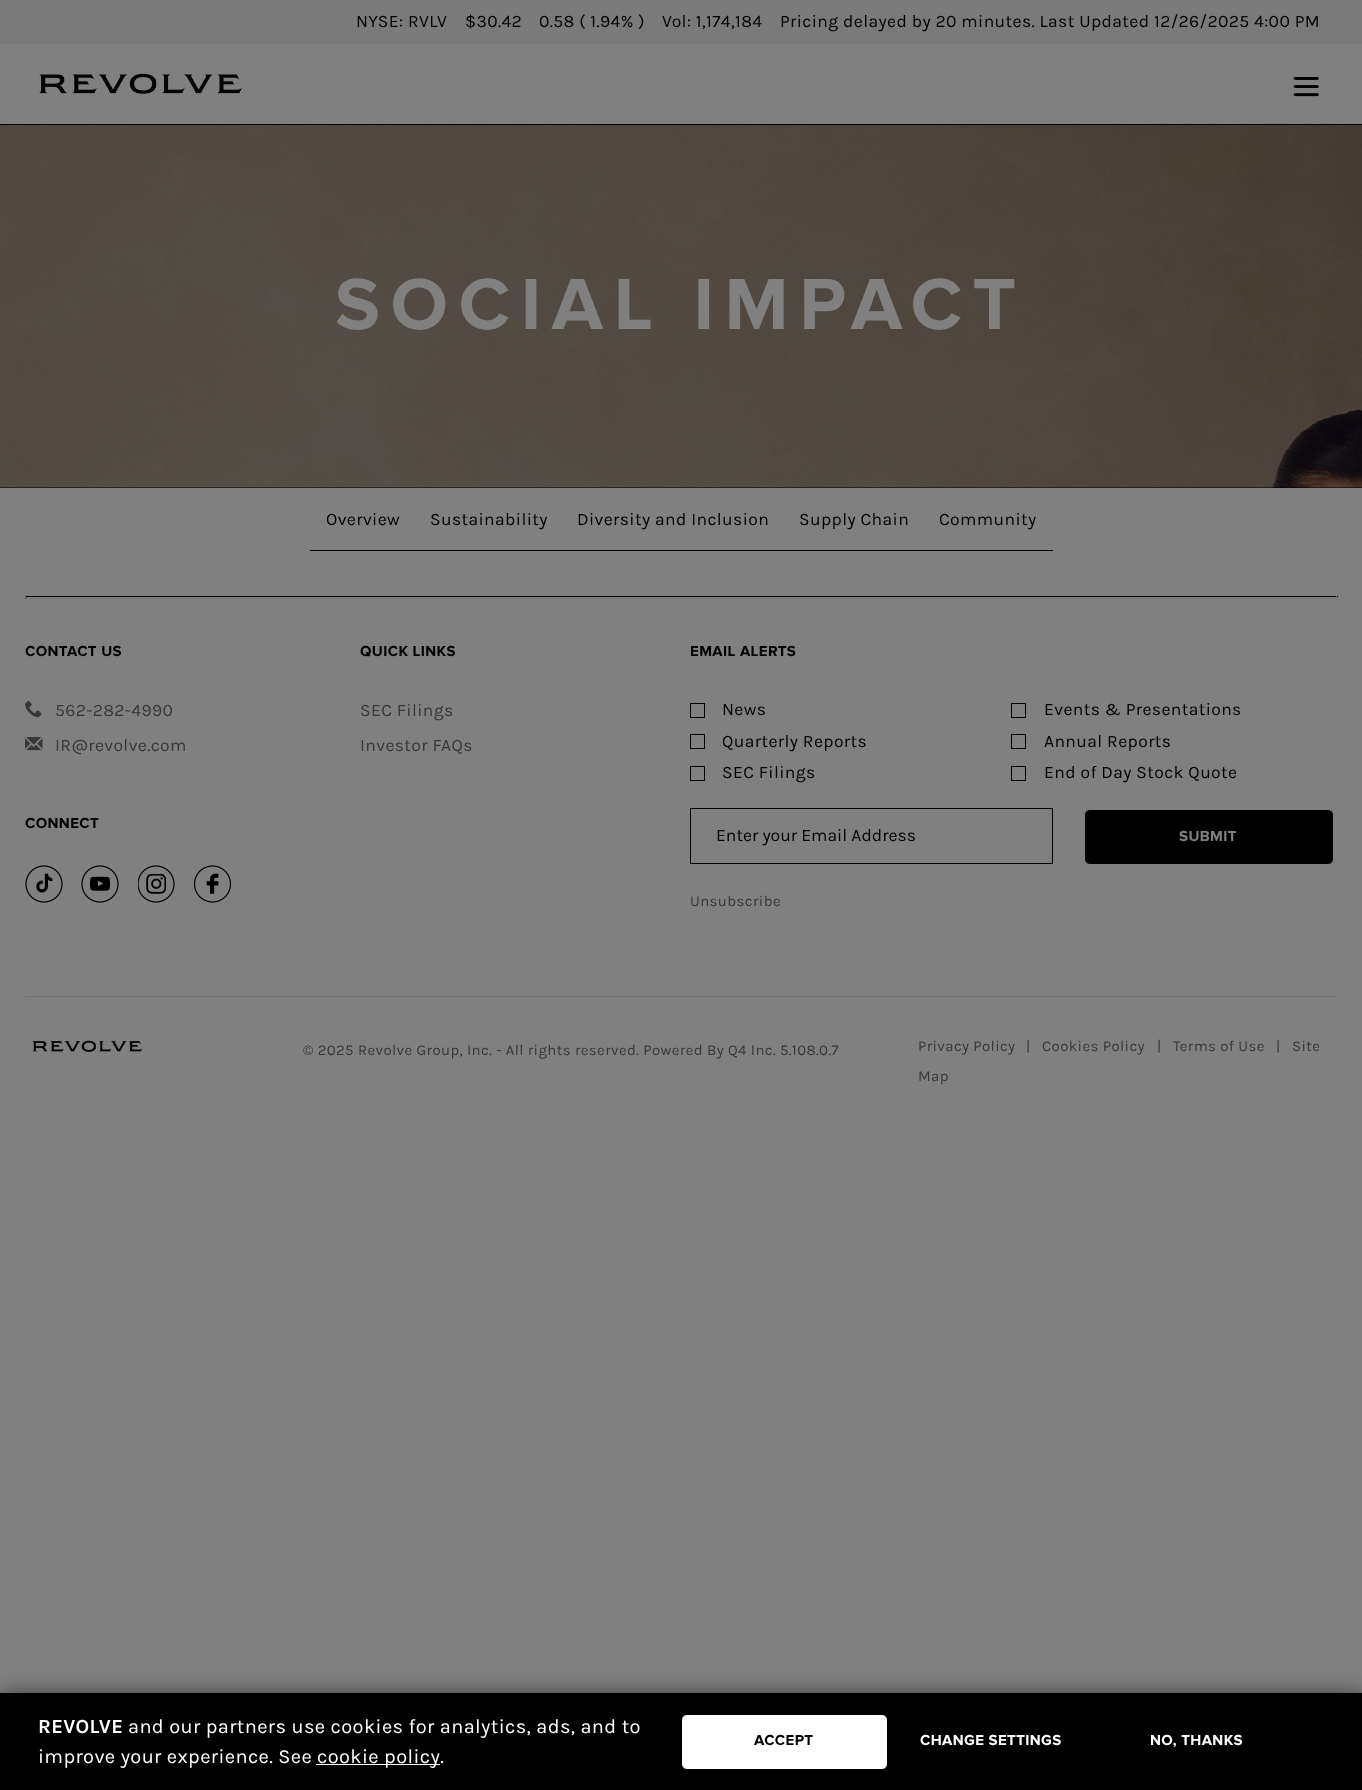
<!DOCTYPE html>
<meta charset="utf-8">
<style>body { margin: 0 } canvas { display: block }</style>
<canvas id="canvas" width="1362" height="1790"></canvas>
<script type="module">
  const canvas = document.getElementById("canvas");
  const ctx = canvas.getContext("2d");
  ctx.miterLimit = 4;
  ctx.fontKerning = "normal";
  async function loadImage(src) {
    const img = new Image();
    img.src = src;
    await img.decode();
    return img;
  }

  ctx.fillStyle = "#808080";
  ctx.fillRect(0, 0, 1362, 1790);
  ctx.fillStyle = "#7a7a7a";
  ctx.fillRect(0, 0, 1362, 44);
  ctx.letterSpacing = "0.38px";
  ctx.font = "17.5px Karla";
  ctx.fillStyle = "#000000";
  ctx.fillText("NYSE: RVLV", 356, 27);
  ctx.fillText("$30.42", 465, 27);
  ctx.fillText("0.58 ( 1.94% )", 539, 27);
  ctx.fillText("Vol: 1,174,184", 662, 27);
  ctx.fillText("Pricing delayed by 20 minutes. Last Updated 12/26/2025 4:00 PM", 780, 27);
  ctx.drawImage(await loadImage("img1.png"), 39, 73, 203, 21);
  ctx.drawImage(await loadImage("img2.png"), 1293, 77, 26, 20);
  ctx.fillRect(0, 124, 1362, 364);
  ctx.drawImage(await loadImage("img3.png"), 0, 125, 1362, 363);
  ctx.letterSpacing = "10.6px";
  ctx.font = "bold 75px Proxima Nova";
  ctx.fillStyle = "#808080";
  ctx.fillText("SOCIAL IMPACT", 335, 329);
  ctx.fillStyle = "#000000";
  ctx.fillRect(310, 550, 743, 1);
  ctx.letterSpacing = "0.38px";
  ctx.font = "17.5px Karla";
  ctx.fillText("Overview", 326, 525);
  ctx.fillText("Sustainability", 430, 525);
  ctx.fillText("Diversity and Inclusion", 577, 525);
  ctx.fillText("Supply Chain", 799, 525);
  ctx.fillText("Community", 939, 525);
  ctx.fillRect(25, 596, 1313, 1);
  ctx.fillStyle = "#777777";
  ctx.fillRect(1336, 596, 1, 3);
  ctx.fillRect(25, 598, 1313, 1);
  ctx.fillStyle = "#505050";
  ctx.fillRect(25, 596, 1, 3);
  ctx.font = "bold 15px Proxima Nova";
  ctx.fillStyle = "#000000";
  ctx.fillText("CONTACT US", 25, 656);
  ctx.drawImage(await loadImage("img4.png"), 25, 701, 17, 17);
  ctx.font = "17.5px Karla";
  ctx.fillStyle = "#373737";
  ctx.fillText("562-282-4990", 55, 716);
  ctx.drawImage(await loadImage("img5.png"), 25, 737, 18, 14);
  ctx.fillText("IR@revolve.com", 55, 751);
  ctx.font = "bold 15px Proxima Nova";
  ctx.fillStyle = "#000000";
  ctx.fillText("CONNECT", 25, 828);
  ctx.drawImage(await loadImage("img6.png"), 25, 865, 38, 38);
  ctx.drawImage(await loadImage("img7.png"), 81, 865, 38, 38);
  ctx.drawImage(await loadImage("img8.png"), 138, 865, 37, 38);
  ctx.drawImage(await loadImage("img9.png"), 194, 865, 37, 38);
  ctx.fillText("QUICK LINKS", 360, 656);
  ctx.font = "17.5px Karla";
  ctx.fillStyle = "#373737";
  ctx.fillText("SEC Filings", 360, 716);
  ctx.fillText("Investor FAQs", 360, 751);
  ctx.font = "bold 15px Proxima Nova";
  ctx.fillStyle = "#000000";
  ctx.fillText("EMAIL ALERTS", 690, 656);
  ctx.strokeStyle = "#000000";
  ctx.strokeRect(690.5, 703.5, 14, 14);
  ctx.font = "17.5px Karla";
  ctx.fillText("News", 722, 715);
  ctx.strokeRect(1011.5, 703.5, 14, 14);
  ctx.fillText("Events & Presentations", 1044, 715);
  ctx.strokeRect(690.5, 734.5, 14, 14);
  ctx.fillText("Quarterly Reports", 722, 747);
  ctx.strokeRect(1011.5, 734.5, 14, 14);
  ctx.fillText("Annual Reports", 1044, 747);
  ctx.strokeRect(690.5, 766.5, 14, 14);
  ctx.fillText("SEC Filings", 722, 778);
  ctx.strokeRect(1011.5, 766.5, 14, 14);
  ctx.fillText("End of Day Stock Quote", 1044, 778);
  ctx.strokeRect(690.5, 808.5, 362, 55);
  ctx.letterSpacing = "0px";
  ctx.fillText("Enter your Email Address", 716, 841);
  ctx.beginPath();
  ctx.roundRect(1084.5, 809.5, 249, 55, 5.5);
  ctx.fill();
  ctx.strokeStyle = "#808080";
  ctx.stroke();
  ctx.letterSpacing = "0.38px";
  ctx.font = "bold 15px Proxima Nova";
  ctx.fillStyle = "#808080";
  ctx.fillText("SUBMIT", 1179, 841);
  ctx.font = "15px Karla";
  ctx.fillStyle = "#373737";
  ctx.fillText("Unsubscribe", 690, 906);
  ctx.fillStyle = "#717171";
  ctx.fillRect(25, 996, 1313, 1);
  ctx.fillStyle = "#7e7e7e";
  ctx.fillRect(1336, 996, 1, 3);
  ctx.fillStyle = "#767676";
  ctx.fillRect(25, 996, 1, 3);
  ctx.drawImage(await loadImage("img10.png"), 32, 1040, 111, 12);
  ctx.fillStyle = "#373737";
  ctx.fillText("© 2025 Revolve Group, Inc. - All rights reserved. Powered By Q4 Inc. 5.108.0.7", 303, 1055);
  ctx.fillText("Privacy Policy", 918, 1051);
  ctx.fillText("|", 1026, 1051);
  ctx.fillText("Cookies Policy", 1042, 1051);
  ctx.fillText("|", 1157, 1051);
  ctx.fillText("Terms of Use", 1173, 1051);
  ctx.fillText("|", 1276, 1051);
  ctx.fillText("Site", 1292, 1051);
  ctx.fillText("Map", 918, 1081);
  ctx.fillStyle = "#333333";
  ctx.filter = "blur(11px)";
  ctx.beginPath();
  ctx.rect(0, 1695, 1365, 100);
  ctx.fill();
  ctx.filter = "none";
  ctx.fillStyle = "#000000";
  ctx.fillRect(0, 1693, 1362, 97);
  ctx.font = "bold 20px Karla";
  ctx.fillStyle = "#ffffff";
  ctx.fillText("REVOLVE", 38, 1733);
  ctx.font = "20px Karla";
  ctx.fillText("and our partners use cookies for analytics, ads, and to", 128, 1733);
  ctx.fillText("improve your experience. See", 38, 1763);
  ctx.fillRect(316, 1764, 124, 1);
  ctx.fillText("cookie policy.", 317, 1763);
  ctx.beginPath();
  ctx.roundRect(681.5, 1714.5, 206, 55, 5.5);
  ctx.fill();
  ctx.strokeStyle = "#000000";
  ctx.stroke();
  ctx.font = "bold 15px Proxima Nova";
  ctx.fillStyle = "#000000";
  ctx.fillText("ACCEPT", 754, 1745);
  ctx.fillStyle = "#ffffff";
  ctx.fillText("CHANGE SETTINGS", 920, 1745);
  ctx.fillText("NO, THANKS", 1150, 1745);
</script>
